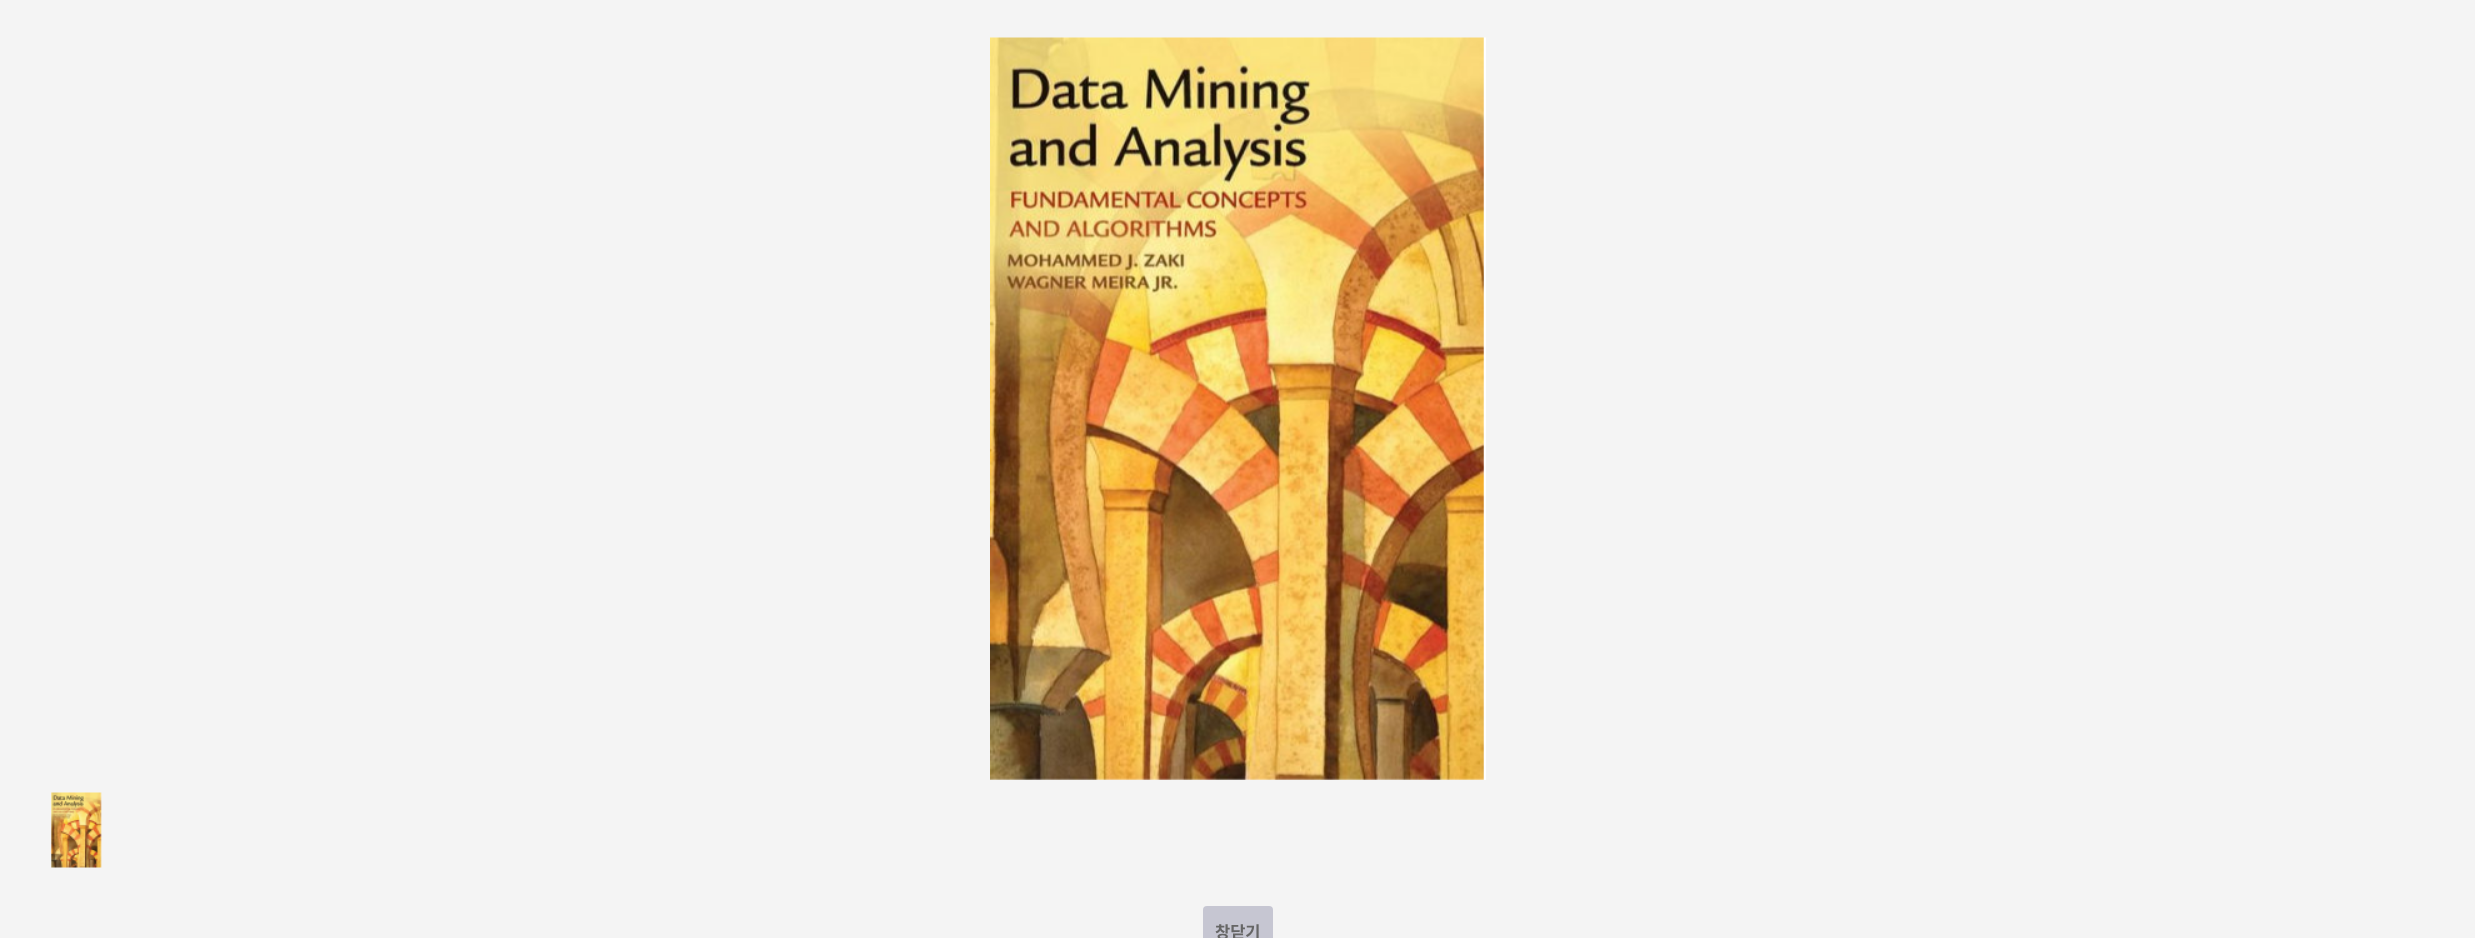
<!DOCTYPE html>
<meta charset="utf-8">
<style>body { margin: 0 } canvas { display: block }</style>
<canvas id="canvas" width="2475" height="938"></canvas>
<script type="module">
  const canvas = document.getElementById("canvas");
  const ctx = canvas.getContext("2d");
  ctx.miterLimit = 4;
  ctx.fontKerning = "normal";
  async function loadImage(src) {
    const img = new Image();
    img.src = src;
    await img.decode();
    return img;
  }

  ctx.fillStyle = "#f4f4f4";
  ctx.fillRect(0, 0, 2475, 938);
  ctx.drawImage(await loadImage("img1.png"), 990, 37, 496, 743);
  ctx.drawImage(await loadImage("img2.png"), 51, 792, 51, 76);
  ctx.fillStyle = "#c6c6d2";
  ctx.beginPath();
  ctx.roundRect(1203, 906, 70, 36, 4);
  ctx.fill();
  ctx.font = "bold 16.5px Noto Sans KR";
  ctx.fillStyle = "#666666";
  ctx.fillText("창닫기", 1215, 938);
</script>
